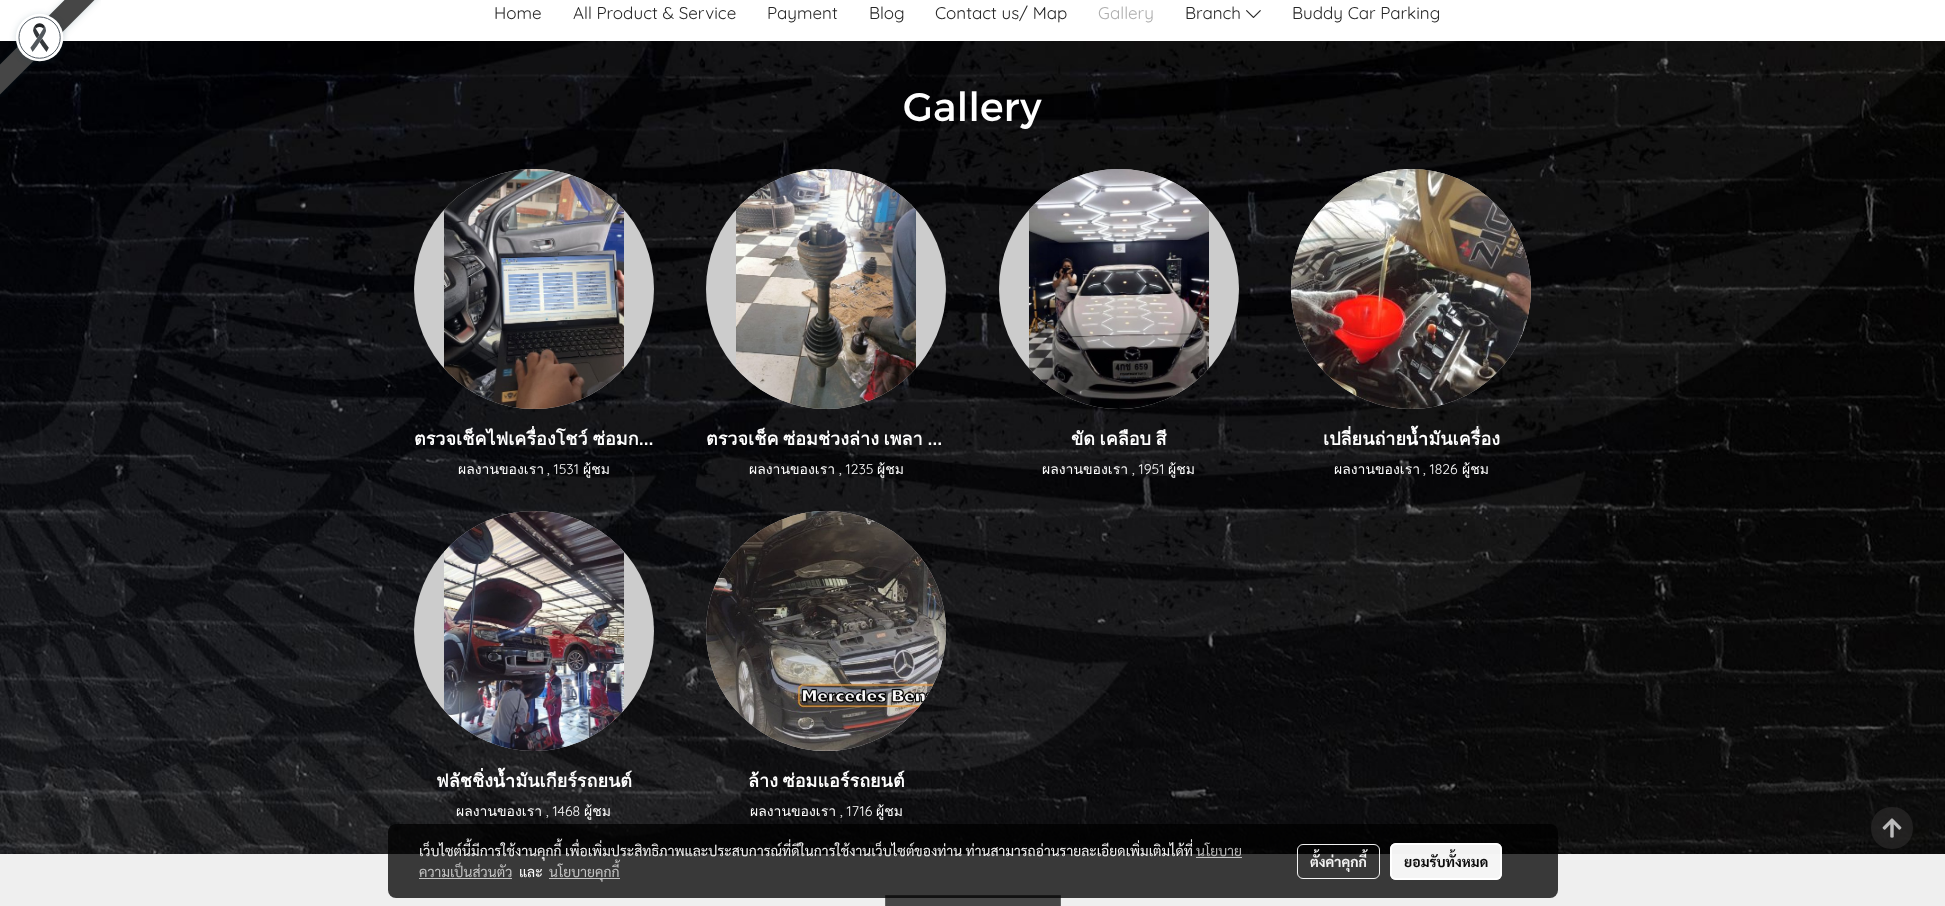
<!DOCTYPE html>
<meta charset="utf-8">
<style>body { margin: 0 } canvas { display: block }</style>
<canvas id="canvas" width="1945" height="906"></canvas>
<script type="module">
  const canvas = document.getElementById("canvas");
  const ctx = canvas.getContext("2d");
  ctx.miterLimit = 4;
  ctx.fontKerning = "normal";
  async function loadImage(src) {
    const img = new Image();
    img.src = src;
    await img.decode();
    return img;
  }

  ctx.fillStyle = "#ffffff";
  ctx.fillRect(0, 0, 1945, 906);
  ctx.drawImage(await loadImage("img1.png"), 0, 41, 1945, 813);
  ctx.drawImage(await loadImage("img2.png"), 0, 0, 101, 97);
  ctx.font = "300 17px Quicksand";
  ctx.fillStyle = "#262626";
  ctx.fillText("Home", 494, 19);
  ctx.fillText("All Product & Service", 573, 19);
  ctx.fillText("Payment", 767, 19);
  ctx.fillText("Blog", 869, 19);
  ctx.fillText("Contact us/ Map", 935, 19);
  ctx.fillStyle = "#aeaeae";
  ctx.fillText("Gallery", 1098, 19);
  ctx.fillStyle = "#262626";
  ctx.fillText("Branch", 1185, 19);
  ctx.drawImage(await loadImage("img3.png"), 1246, 10, 15, 8);
  ctx.fillText("Buddy Car Parking", 1292, 19);
  ctx.font = "40px Montserrat";
  ctx.fillStyle = "#ffffff";
  ctx.fillText("Gallery", 903, 121);
  ctx.fillStyle = "#cccccc";
  ctx.beginPath();
  ctx.arc(534, 289, 120, 0, Math.PI * 2);
  ctx.fill();
  ctx.drawImage(await loadImage("img4.png"), 444, 169, 180, 240);
  ctx.wordSpacing = "-1px";
  ctx.font = "bold 18px Loma";
  ctx.fillStyle = "#ffffff";
  ctx.fillText("ตรวจเช็คไฟเครื่องโชว์ ซ่อมก…", 414, 445);
  ctx.wordSpacing = "0px";
  ctx.font = "14px Loma";
  ctx.fillText("ผลงานของเรา", 458, 474);
  ctx.font = "300 14px Quicksand";
  ctx.fillText(", 1531", 547, 474);
  ctx.font = "14px Loma";
  ctx.fillText("ผู้ชม", 583, 474);
  ctx.fillStyle = "#cccccc";
  ctx.beginPath();
  ctx.arc(826, 289, 120, 0, Math.PI * 2);
  ctx.fill();
  ctx.drawImage(await loadImage("img5.png"), 736, 169, 180, 240);
  ctx.wordSpacing = "-1.5px";
  ctx.font = "bold 18px Loma";
  ctx.fillStyle = "#ffffff";
  ctx.fillText("ตรวจเช็ค ซ่อมช่วงล่าง เพลา …", 706, 445);
  ctx.wordSpacing = "0px";
  ctx.font = "14px Loma";
  ctx.fillText("ผลงานของเรา", 749, 474);
  ctx.font = "300 14px Quicksand";
  ctx.fillText(", 1235", 839, 474);
  ctx.font = "14px Loma";
  ctx.fillText("ผู้ชม", 877, 474);
  ctx.fillStyle = "#cccccc";
  ctx.beginPath();
  ctx.arc(1119, 289, 120, 0, Math.PI * 2);
  ctx.fill();
  ctx.drawImage(await loadImage("img6.png"), 1029, 169, 180, 240);
  ctx.wordSpacing = "-1.5px";
  ctx.font = "bold 18px Loma";
  ctx.fillStyle = "#ffffff";
  ctx.fillText("ขัด เคลือบ สี", 1071, 445);
  ctx.wordSpacing = "0px";
  ctx.font = "14px Loma";
  ctx.fillText("ผลงานของเรา", 1042, 474);
  ctx.font = "300 14px Quicksand";
  ctx.fillText(", 1951", 1132, 474);
  ctx.font = "14px Loma";
  ctx.fillText("ผู้ชม", 1168, 474);
  ctx.fillStyle = "#cccccc";
  ctx.beginPath();
  ctx.arc(1411, 289, 120, 0, Math.PI * 2);
  ctx.fill();
  ctx.drawImage(await loadImage("img7.png"), 1291, 169, 240, 240);
  ctx.font = "bold 18px Loma";
  ctx.fillStyle = "#ffffff";
  ctx.fillText("เปลี่ยนถ่ายน้ำมันเครื่อง", 1323, 445);
  ctx.font = "14px Loma";
  ctx.fillText("ผลงานของเรา", 1334, 474);
  ctx.font = "300 14px Quicksand";
  ctx.fillText(", 1826", 1423, 474);
  ctx.font = "14px Loma";
  ctx.fillText("ผู้ชม", 1462, 474);
  ctx.fillStyle = "#cccccc";
  ctx.beginPath();
  ctx.arc(534, 631, 120, 0, Math.PI * 2);
  ctx.fill();
  ctx.drawImage(await loadImage("img8.png"), 444, 511, 180, 240);
  ctx.font = "bold 18px Loma";
  ctx.fillStyle = "#ffffff";
  ctx.fillText("ฟลัชชิ่งน้ำมันเกียร์รถยนต์", 436, 787);
  ctx.font = "14px Loma";
  ctx.fillText("ผลงานของเรา", 456, 816);
  ctx.font = "300 14px Quicksand";
  ctx.fillText(", 1468", 546, 816);
  ctx.font = "14px Loma";
  ctx.fillText("ผู้ชม", 584, 816);
  ctx.fillStyle = "#cccccc";
  ctx.beginPath();
  ctx.arc(826, 631, 120, 0, Math.PI * 2);
  ctx.fill();
  ctx.drawImage(await loadImage("img9.png"), 706, 511, 240, 240);
  ctx.wordSpacing = "-1.5px";
  ctx.font = "bold 18px Loma";
  ctx.fillStyle = "#ffffff";
  ctx.fillText("ล้าง ซ่อมแอร์รถยนต์", 748, 787);
  ctx.wordSpacing = "0px";
  ctx.font = "14px Loma";
  ctx.fillText("ผลงานของเรา", 750, 816);
  ctx.font = "300 14px Quicksand";
  ctx.fillText(", 1716", 840, 816);
  ctx.font = "14px Loma";
  ctx.fillText("ผู้ชม", 876, 816);
  ctx.fillStyle = "#efefef";
  ctx.fillRect(0, 854, 1945, 52);
  ctx.fillStyle = "#474747";
  ctx.beginPath();
  ctx.rect(885.5, 895.5, 175, 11);
  ctx.fill();
  ctx.strokeStyle = "#646464";
  ctx.stroke();
  ctx.fillStyle = "rgba(43, 42, 42, 0.7)";
  ctx.beginPath();
  ctx.moveTo(1892, 807);
  ctx.bezierCurveTo(1864, 807, 1864, 849, 1892, 849);
  ctx.bezierCurveTo(1920, 849, 1920, 807, 1892, 807);
  ctx.closePath();
  ctx.fill();
  ctx.drawImage(await loadImage("img10.png"), 1882, 818, 20, 20);
  ctx.fillStyle = "rgba(0, 0, 0, 0.76)";
  ctx.beginPath();
  ctx.roundRect(388, 824, 1170, 74, 8);
  ctx.fill();
  ctx.font = "14px Sarabun";
  ctx.fillStyle = "#f3f3f3";
  ctx.fillText("เว็บไซต์นี้มีการใช้งานคุกกี้ เพื่อเพิ่มประสิทธิภาพและประสบการณ์ที่ดีในการใช้งานเว็บไซต์ของท่าน ท่านสามารถอ่านรายละเอียดเพิ่มเติมได้ที่", 419, 856);
  ctx.fillStyle = "#b9b9b9";
  ctx.fillText("นโยบาย", 1196, 856);
  ctx.fillStyle = "#c4c4c4";
  ctx.fillRect(1196, 857, 46, 1);
  ctx.fillText("ความเป็นส่วนตัว", 419, 877);
  ctx.fillRect(419, 878, 93, 1);
  ctx.fillStyle = "#ffffff";
  ctx.fillText("และ", 519, 877);
  ctx.fillStyle = "#c4c4c4";
  ctx.fillRect(549, 878, 71, 1);
  ctx.fillText("นโยบายคุกกี้", 549, 877);
  ctx.beginPath();
  ctx.roundRect(1297.5, 844.5, 82, 34, 5.5);
  ctx.strokeStyle = "rgba(255, 255, 255, 0.95)";
  ctx.stroke();
  ctx.font = "bold 14px Sarabun";
  ctx.fillStyle = "#f3f3f3";
  ctx.fillText("ตั้งค่าคุกกี้", 1310, 867);
  ctx.fillStyle = "rgba(255, 255, 255, 0.95)";
  ctx.beginPath();
  ctx.roundRect(1390, 843, 112, 37, 6);
  ctx.fill();
  ctx.beginPath();
  ctx.roundRect(1391, 844, 110, 35, 5);
  ctx.lineWidth = 2;
  ctx.stroke();
  ctx.fillStyle = "#0c0c0c";
  ctx.fillText("ยอมรับทั้งหมด", 1404, 867);
</script>
